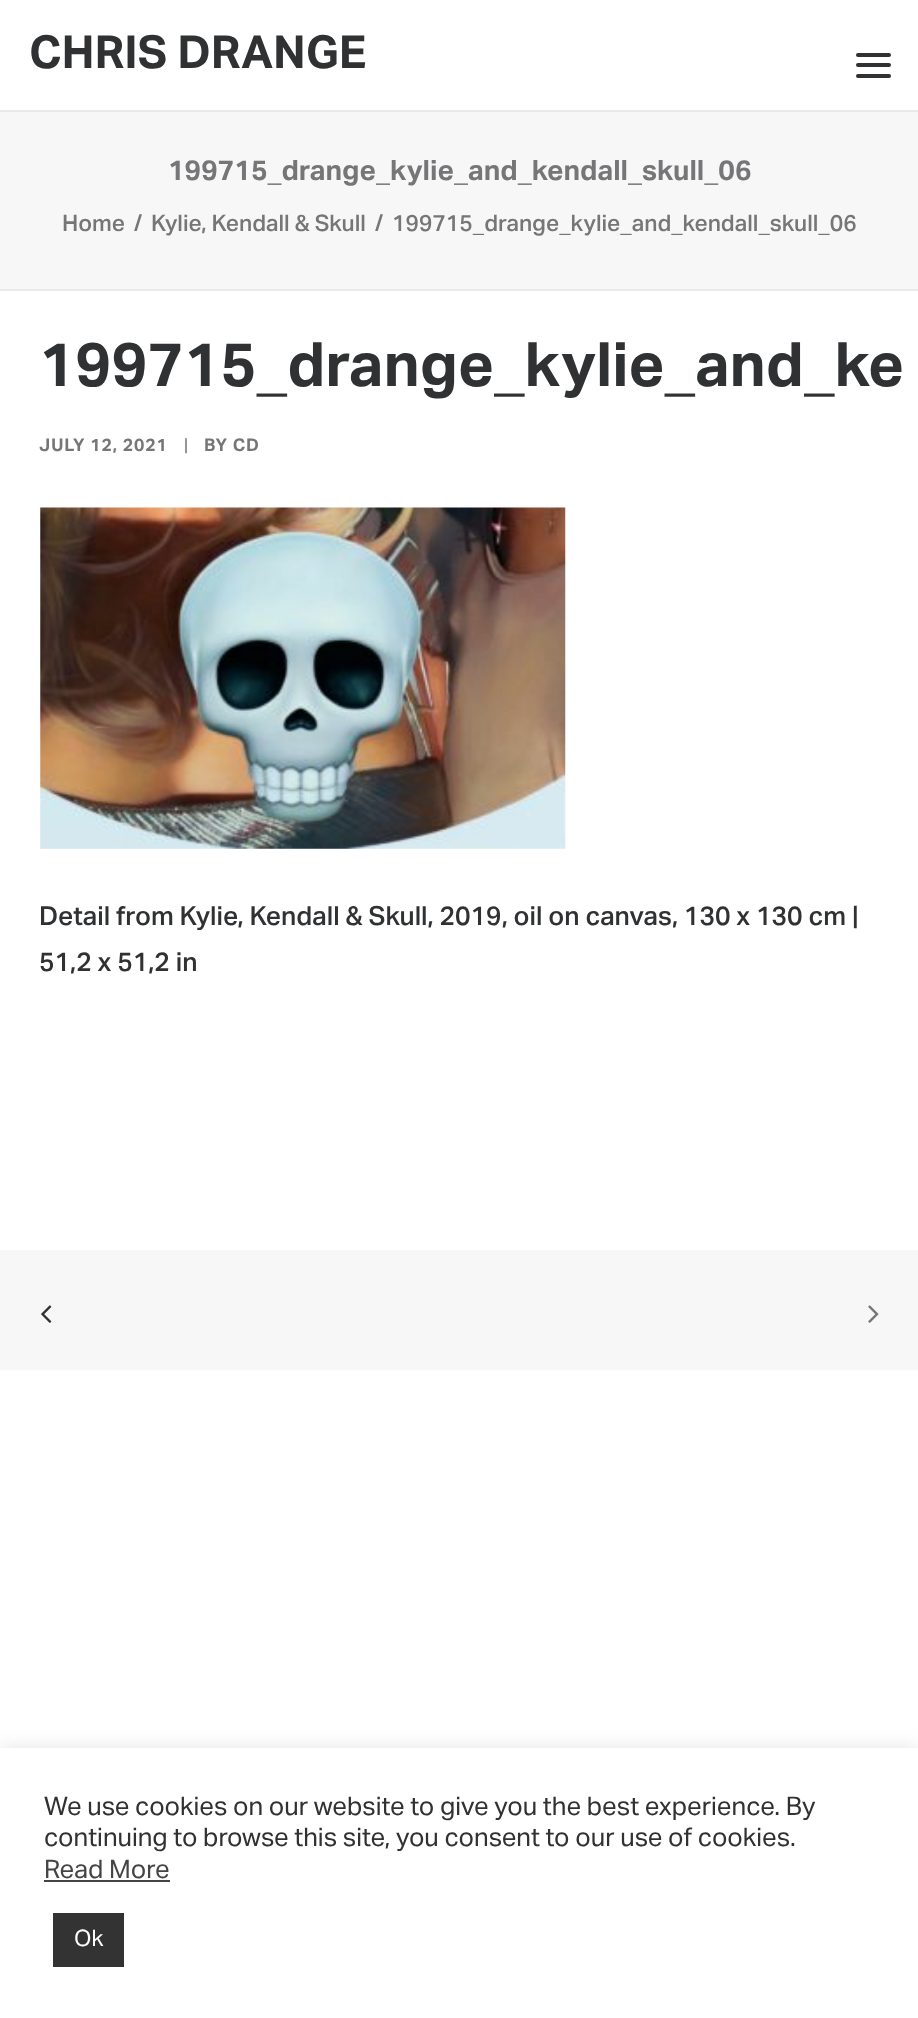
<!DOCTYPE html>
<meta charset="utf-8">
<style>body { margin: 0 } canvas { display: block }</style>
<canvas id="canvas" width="918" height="2018"></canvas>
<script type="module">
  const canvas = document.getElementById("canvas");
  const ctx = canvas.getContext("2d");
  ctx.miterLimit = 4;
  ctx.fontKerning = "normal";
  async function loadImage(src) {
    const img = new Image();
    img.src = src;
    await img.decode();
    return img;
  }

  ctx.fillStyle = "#ffffff";
  ctx.fillRect(0, 0, 918, 2018);
  ctx.font = "bold 45.5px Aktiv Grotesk";
  ctx.fillStyle = "#303133";
  ctx.fillText("CHRIS DRANGE", 29, 68);
  ctx.beginPath();
  ctx.roundRect(856, 63, 35, 4, 2);
  ctx.fill();
  ctx.beginPath();
  ctx.roundRect(856, 53, 35, 4, 2);
  ctx.fill();
  ctx.beginPath();
  ctx.roundRect(856, 74, 35, 4, 2);
  ctx.fill();
  ctx.fillStyle = "#f7f7f7";
  ctx.fillRect(0, 112, 918, 177);
  ctx.fillStyle = "#eaeaea";
  ctx.fillRect(0, 110, 918, 2);
  ctx.fillRect(0, 289, 918, 2);
  ctx.font = "bold 28px Aktiv Grotesk";
  ctx.fillStyle = "#767678";
  ctx.fillText("199715_drange_kylie_and_kendall_skull_06", 168, 180);
  ctx.font = "500 22.75px Aktiv Grotesk";
  ctx.fillText("Home", 62, 231);
  ctx.fillText("/", 134, 231);
  ctx.fillText("Kylie, Kendall & Skull", 151, 231);
  ctx.fillText("/", 375, 231);
  ctx.fillText("199715_drange_kylie_and_kendall_skull_06", 392, 231);
  ctx.font = "bold 61.25px Aktiv Grotesk";
  ctx.fillStyle = "#303133";
  ctx.fillText("199715_drange_kylie_and_ke", 39, 386);
  ctx.letterSpacing = "0.9px";
  ctx.font = "bold 17.5px Aktiv Grotesk";
  ctx.fillStyle = "#767678";
  ctx.fillText("JULY 12, 2021", 39, 451);
  ctx.font = "17.5px Aktiv Grotesk";
  ctx.fillText("|", 184, 451);
  ctx.font = "bold 17.5px Aktiv Grotesk";
  ctx.fillText("BY CD", 204, 451);
  ctx.drawImage(await loadImage("img1.png"), 40, 507, 526, 342);
  ctx.letterSpacing = "0px";
  ctx.font = "500 26.25px Aktiv Grotesk";
  ctx.fillStyle = "#303133";
  ctx.fillText("Detail from Kylie, Kendall & Skull, 2019, oil on canvas, 130 x 130 cm |", 39, 925);
  ctx.fillText("51,2 x 51,2 in", 39, 971);
  ctx.fillStyle = "#f7f7f7";
  ctx.fillRect(0, 1250, 918, 120);
  ctx.drawImage(await loadImage("img2.png"), 41, 1305, 11, 18);
  ctx.drawImage(await loadImage("img3.png"), 868, 1305, 11, 18);
  ctx.fillStyle = "rgba(172, 171, 171, 0.3)";
  ctx.filter = "blur(9px)";
  ctx.beginPath();
  ctx.rect(0, 1747, 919, 271);
  ctx.fill();
  ctx.filter = "none";
  ctx.fillStyle = "#ffffff";
  ctx.fillRect(0, 1748, 918, 270);
  ctx.font = "25.7px Aktiv Grotesk";
  ctx.fillStyle = "#303133";
  ctx.fillText("We use cookies on our website to give you the best experience. By", 44, 1815);
  ctx.fillText("continuing to browse this site, you consent to our use of cookies.", 44, 1846);
  ctx.fillStyle = "#444444";
  ctx.fillText("Read More", 44, 1878);
  ctx.fillRect(44, 1880, 126, 2);
  ctx.fillStyle = "#333333";
  ctx.fillRect(53, 1913, 71, 54);
  ctx.font = "22.75px Aktiv Grotesk";
  ctx.fillStyle = "#ffffff";
  ctx.fillText("Ok", 74, 1946);
</script>
